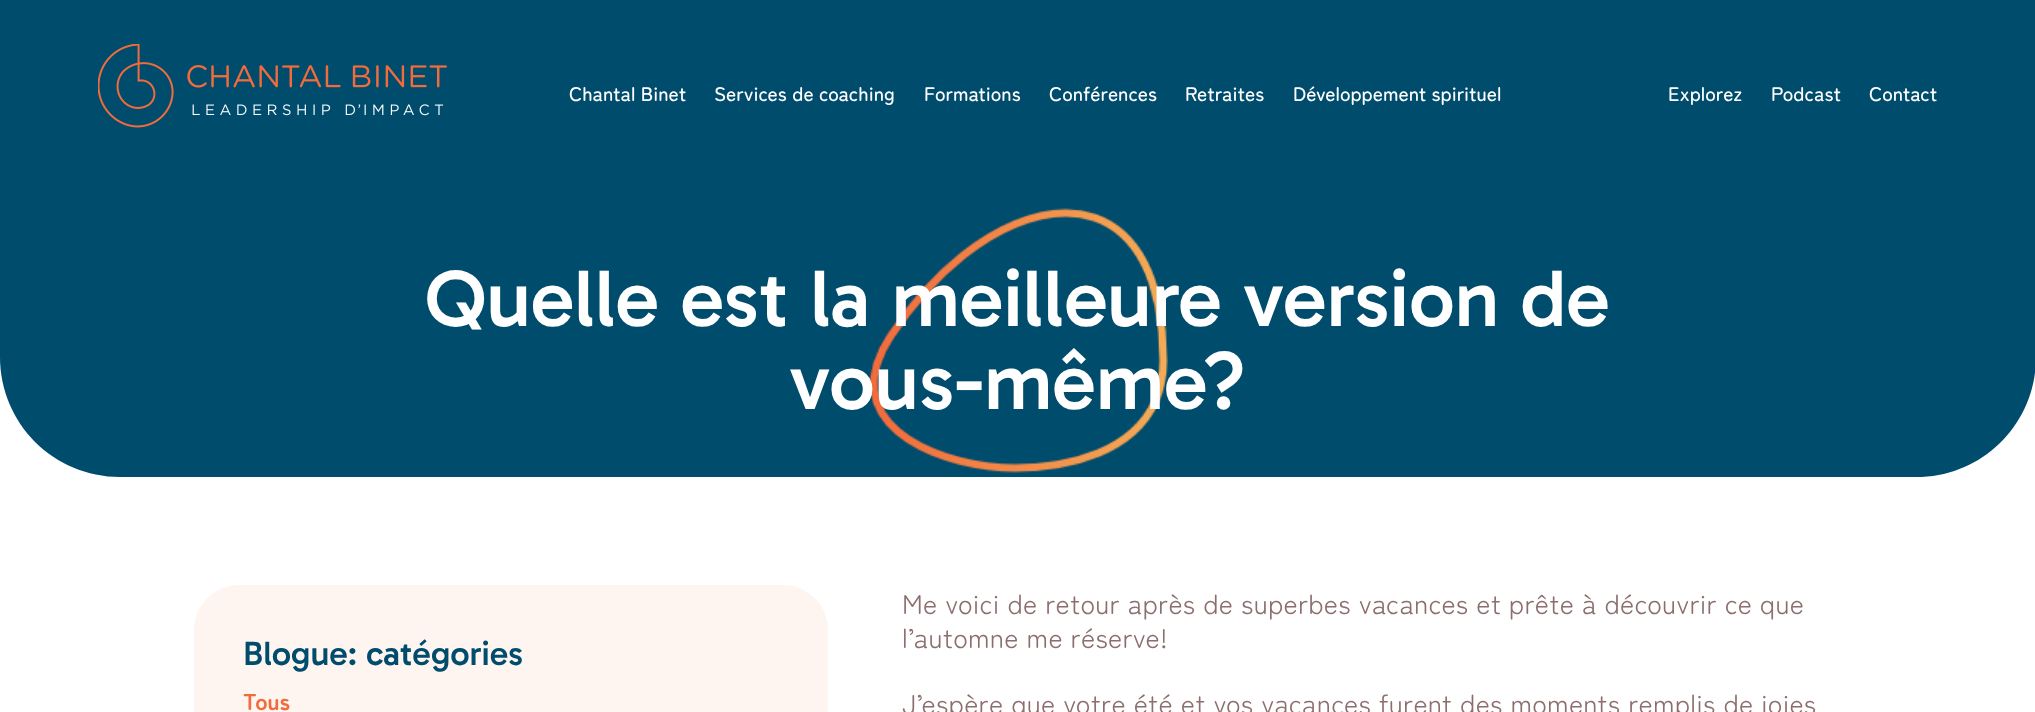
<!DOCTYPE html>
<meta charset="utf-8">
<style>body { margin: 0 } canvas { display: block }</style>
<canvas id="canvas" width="2035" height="712"></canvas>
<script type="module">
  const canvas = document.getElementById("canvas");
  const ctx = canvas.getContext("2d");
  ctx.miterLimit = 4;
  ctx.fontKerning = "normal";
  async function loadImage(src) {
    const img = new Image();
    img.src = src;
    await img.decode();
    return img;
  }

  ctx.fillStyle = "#ffffff";
  ctx.fillRect(0, 0, 2035, 712);
  ctx.fillStyle = "#004c6d";
  ctx.beginPath();
  ctx.moveTo(0, 0);
  ctx.lineTo(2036, 0);
  ctx.lineTo(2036, 357);
  ctx.bezierCurveTo(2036, 423.5, 1982.5, 477, 1916, 477);
  ctx.lineTo(120, 477);
  ctx.bezierCurveTo(53.5, 477, 0, 423.5, 0, 357);
  ctx.closePath();
  ctx.fill();
  ctx.drawImage(await loadImage("img1.png"), 98, 44, 349, 84);
  ctx.font = "500 19.6px Zen Maru Gothic";
  ctx.fillStyle = "#ffffff";
  ctx.fillText("Chantal Binet", 569, 101);
  ctx.fillText("Services de coaching", 714, 101);
  ctx.fillText("Formations", 924, 101);
  ctx.fillText("Conférences", 1049, 101);
  ctx.fillText("Retraites", 1185, 101);
  ctx.fillText("Développement spirituel", 1293, 101);
  ctx.fillText("Explorez", 1668, 101);
  ctx.fillText("Podcast", 1771, 101);
  ctx.fillText("Contact", 1869, 101);
  ctx.drawImage(await loadImage("img2.png"), 869, 208, 299, 265);
  ctx.font = "500 81px Gabarito";
  ctx.fillText("Quelle est la meilleure version de", 425, 326);
  ctx.fillText("vous-même?", 789, 409);
  ctx.fillStyle = "#fff5f0";
  ctx.beginPath();
  ctx.roundRect(194, 585, 634, 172, 45);
  ctx.fill();
  ctx.font = "500 34.25px Gabarito";
  ctx.fillStyle = "#004c6d";
  ctx.fillText("Blogue: catégories", 243, 665);
  ctx.font = "bold 23px Zen Maru Gothic";
  ctx.fillStyle = "#f26b3c";
  ctx.fillText("Tous", 243, 710);
  ctx.letterSpacing = "0.25px";
  ctx.font = "27px Zen Maru Gothic";
  ctx.fillStyle = "#8c6e6e";
  ctx.fillText("Me voici de retour après de superbes vacances et prête à découvrir ce que", 902, 614);
  ctx.fillText("l’automne me réserve!", 902, 648);
  ctx.fillText("J’espère que votre été et vos vacances furent des moments remplis de joies", 902, 714);
</script>
